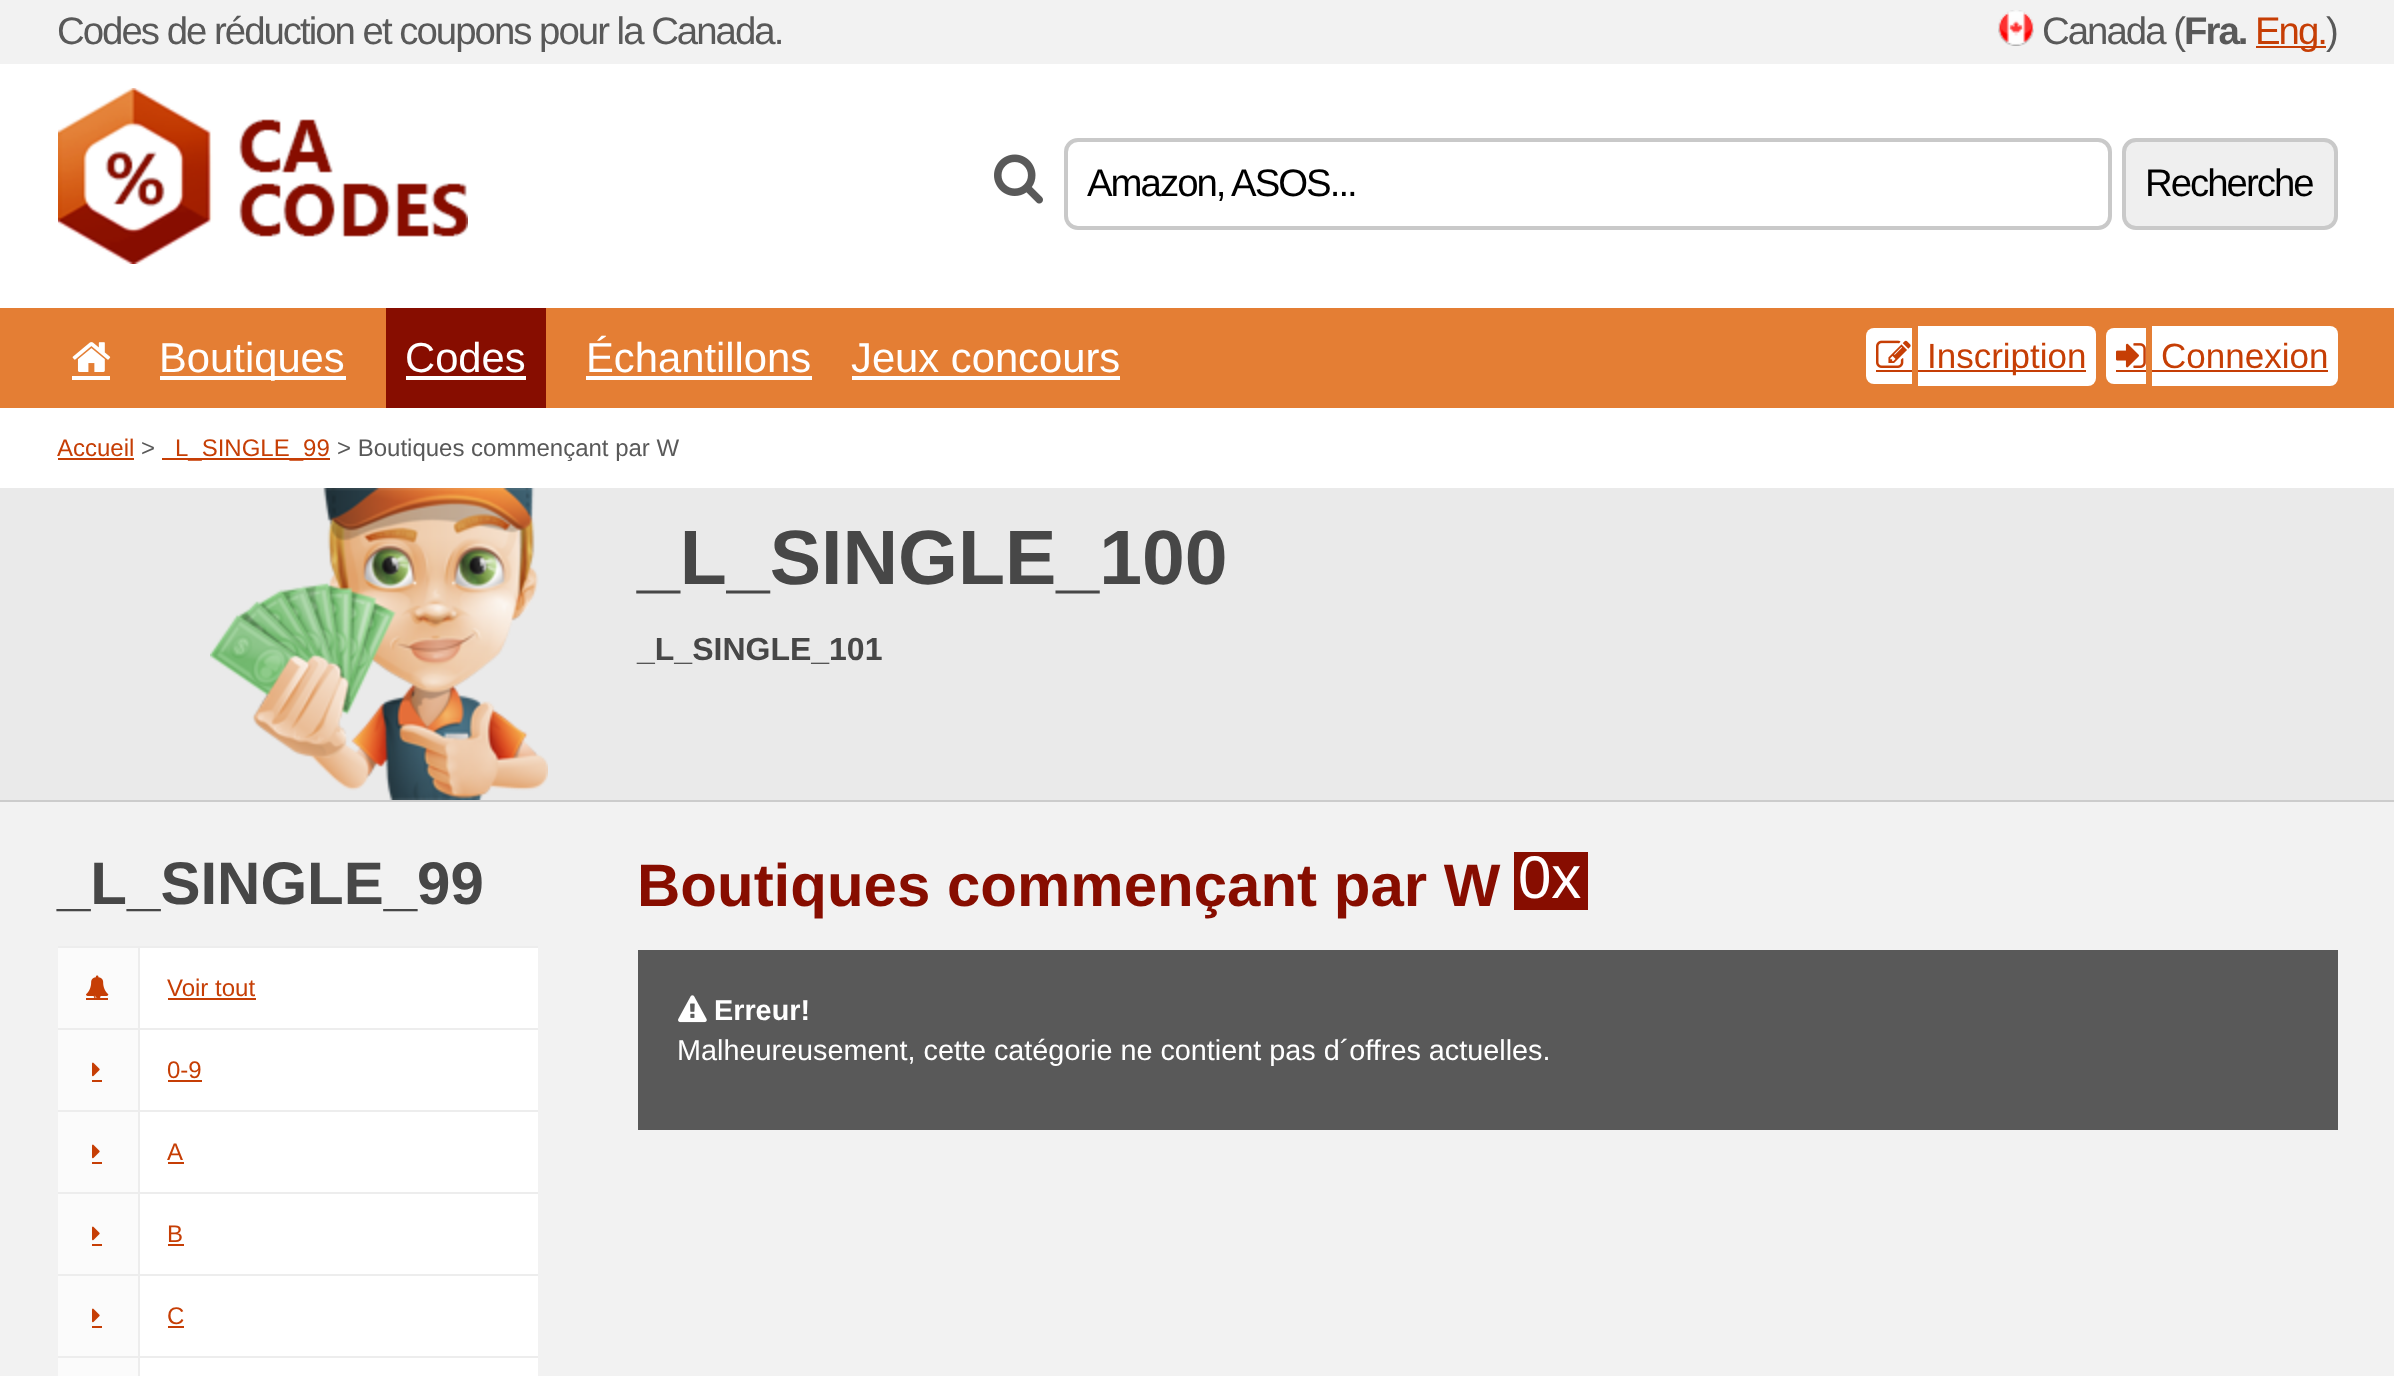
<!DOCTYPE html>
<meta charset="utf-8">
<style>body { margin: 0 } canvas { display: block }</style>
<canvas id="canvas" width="2394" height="1376"></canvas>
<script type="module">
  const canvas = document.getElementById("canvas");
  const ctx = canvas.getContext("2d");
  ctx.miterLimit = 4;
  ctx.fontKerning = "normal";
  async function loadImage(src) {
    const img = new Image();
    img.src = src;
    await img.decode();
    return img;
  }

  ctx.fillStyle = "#f2f2f2";
  ctx.fillRect(0, 0, 2394, 1376);
  ctx.letterSpacing = "-2px";
  ctx.font = "38.4px Liberation Sans";
  ctx.fillStyle = "#595959";
  ctx.fillText("Codes de réduction et coupons pour la Canada.", 57, 44);
  ctx.drawImage(await loadImage("img1.png"), 1998, 10, 36, 36);
  ctx.fillText("Canada (", 2042, 44);
  ctx.font = "bold 38.4px Liberation Sans";
  ctx.fillText("Fra.", 2184, 44);
  ctx.fillStyle = "#c63e05";
  ctx.fillRect(2256, 46, 70, 2);
  ctx.font = "38.4px Liberation Sans";
  ctx.fillText("Eng.", 2255, 44);
  ctx.fillStyle = "#595959";
  ctx.fillText(")", 2326, 44);
  ctx.fillStyle = "#ffffff";
  ctx.fillRect(0, 64, 2394, 244);
  ctx.drawImage(await loadImage("img2.png"), 58, 88, 410, 176);
  ctx.drawImage(await loadImage("img3.png"), 994, 154, 49, 50);
  ctx.beginPath();
  ctx.roundRect(1066, 140, 1044, 88, 12);
  ctx.strokeStyle = "#c9c9c9";
  ctx.lineWidth = 4;
  ctx.stroke();
  ctx.fillStyle = "#000000";
  ctx.fillText("Amazon, ASOS...", 1087, 196);
  ctx.fillStyle = "#efefef";
  ctx.beginPath();
  ctx.roundRect(2124, 140, 212, 88, 12);
  ctx.fill();
  ctx.stroke();
  ctx.fillStyle = "#000000";
  ctx.fillText("Recherche", 2145, 196);
  ctx.fillStyle = "#e47e34";
  ctx.fillRect(0, 308, 2394, 100);
  ctx.drawImage(await loadImage("img4.png"), 72, 342, 39, 30);
  ctx.fillStyle = "#ffffff";
  ctx.fillRect(72, 376, 38, 4);
  ctx.fillRect(160, 376, 186, 4);
  ctx.letterSpacing = "0px";
  ctx.font = "41.75px Liberation Sans";
  ctx.fillText("Boutiques", 159, 372);
  ctx.fillStyle = "#870d00";
  ctx.fillRect(386, 308, 160, 100);
  ctx.fillStyle = "#ffffff";
  ctx.fillText("Codes", 405, 372);
  ctx.fillRect(406, 376, 120, 4);
  ctx.fillText("Échantillons", 586, 372);
  ctx.fillRect(586, 376, 226, 4);
  ctx.fillText("Jeux concours", 851, 372);
  ctx.fillRect(852, 376, 268, 4);
  ctx.beginPath();
  ctx.roundRect(1866, 328, 46, 56, [8, 0, 0, 8]);
  ctx.fill();
  ctx.drawImage(await loadImage("img5.png"), 1876, 340, 35, 28);
  ctx.beginPath();
  ctx.roundRect(1918, 326, 178, 60, [0, 8, 8, 0]);
  ctx.fill();
  ctx.fillStyle = "#c63e05";
  ctx.fillRect(1918, 370, 168, 2);
  ctx.font = "35px Liberation Sans";
  ctx.fillText("Inscription", 1927, 368);
  ctx.fillRect(1876, 370, 36, 2);
  ctx.fillStyle = "#ffffff";
  ctx.beginPath();
  ctx.roundRect(2106, 328, 40, 56, [8, 0, 0, 8]);
  ctx.fill();
  ctx.drawImage(await loadImage("img6.png"), 2116, 343, 30, 25);
  ctx.beginPath();
  ctx.roundRect(2152, 326, 186, 60, [0, 8, 8, 0]);
  ctx.fill();
  ctx.fillStyle = "#c63e05";
  ctx.fillText("Connexion", 2161, 368);
  ctx.fillRect(2116, 370, 30, 2);
  ctx.fillRect(2152, 370, 176, 2);
  ctx.fillStyle = "#ffffff";
  ctx.fillRect(0, 408, 2394, 80);
  ctx.font = "24px Liberation Sans";
  ctx.fillStyle = "#c63e05";
  ctx.fillText("Accueil", 57, 456);
  ctx.fillRect(58, 458, 76, 2);
  ctx.fillStyle = "#595959";
  ctx.fillText(">", 141, 456);
  ctx.fillStyle = "#c63e05";
  ctx.fillRect(162, 458, 168, 2);
  ctx.fillText("L_SINGLE_99", 175, 456);
  ctx.fillStyle = "#595959";
  ctx.fillText("> Boutiques commençant par W", 337, 456);
  ctx.fillStyle = "#eaeaea";
  ctx.fillRect(0, 488, 2394, 312);
  ctx.fillStyle = "#cccccc";
  ctx.fillRect(0, 800, 2394, 2);
  ctx.drawImage(await loadImage("img7.png"), 210, 488, 338, 312);
  ctx.font = "bold 77px Liberation Sans";
  ctx.fillStyle = "#474747";
  ctx.fillText("_L_SINGLE_100", 637, 584);
  ctx.font = "bold 32px Liberation Sans";
  ctx.fillText("_L_SINGLE_101", 637, 660);
  ctx.font = "bold 60px Liberation Sans";
  ctx.fillText("_L_SINGLE_99", 57, 904);
  ctx.fillStyle = "#ffffff";
  ctx.fillRect(140, 948, 398, 80);
  ctx.fillStyle = "#ededed";
  ctx.fillRect(58, 946, 480, 2);
  ctx.fillStyle = "#fbfbfb";
  ctx.fillRect(58, 948, 80, 80);
  ctx.fillStyle = "#ededed";
  ctx.fillRect(138, 948, 2, 80);
  ctx.drawImage(await loadImage("img8.png"), 86, 975, 23, 23);
  ctx.fillStyle = "#c63e05";
  ctx.fillRect(86, 998, 22, 2);
  ctx.font = "24px Liberation Sans";
  ctx.fillText("Voir tout", 167, 996);
  ctx.fillRect(168, 998, 88, 2);
  ctx.fillStyle = "#ffffff";
  ctx.fillRect(140, 1030, 398, 80);
  ctx.fillStyle = "#ededed";
  ctx.fillRect(58, 1028, 480, 2);
  ctx.fillStyle = "#fbfbfb";
  ctx.fillRect(58, 1030, 80, 80);
  ctx.fillStyle = "#ededed";
  ctx.fillRect(138, 1030, 2, 80);
  ctx.drawImage(await loadImage("img9.png"), 92, 1062, 8, 15);
  ctx.fillStyle = "#c63e05";
  ctx.fillRect(92, 1080, 10, 2);
  ctx.fillText("0-9", 167, 1078);
  ctx.fillRect(168, 1080, 34, 2);
  ctx.fillStyle = "#ffffff";
  ctx.fillRect(140, 1112, 398, 80);
  ctx.fillStyle = "#ededed";
  ctx.fillRect(58, 1110, 480, 2);
  ctx.fillStyle = "#fbfbfb";
  ctx.fillRect(58, 1112, 80, 80);
  ctx.fillStyle = "#ededed";
  ctx.fillRect(138, 1112, 2, 80);
  ctx.drawImage(await loadImage("img9.png"), 92, 1144, 8, 15);
  ctx.fillStyle = "#c63e05";
  ctx.fillRect(92, 1162, 10, 2);
  ctx.fillText("A", 167, 1160);
  ctx.fillRect(168, 1162, 16, 2);
  ctx.fillStyle = "#ffffff";
  ctx.fillRect(140, 1194, 398, 80);
  ctx.fillStyle = "#ededed";
  ctx.fillRect(58, 1192, 480, 2);
  ctx.fillStyle = "#fbfbfb";
  ctx.fillRect(58, 1194, 80, 80);
  ctx.fillStyle = "#ededed";
  ctx.fillRect(138, 1194, 2, 80);
  ctx.drawImage(await loadImage("img9.png"), 92, 1226, 8, 15);
  ctx.fillStyle = "#c63e05";
  ctx.fillRect(92, 1244, 10, 2);
  ctx.fillText("B", 167, 1242);
  ctx.fillRect(168, 1244, 16, 2);
  ctx.fillStyle = "#ffffff";
  ctx.fillRect(140, 1276, 398, 80);
  ctx.fillStyle = "#ededed";
  ctx.fillRect(58, 1274, 480, 2);
  ctx.fillStyle = "#fbfbfb";
  ctx.fillRect(58, 1276, 80, 80);
  ctx.fillStyle = "#ededed";
  ctx.fillRect(138, 1276, 2, 80);
  ctx.drawImage(await loadImage("img9.png"), 92, 1308, 8, 15);
  ctx.fillStyle = "#c63e05";
  ctx.fillRect(92, 1326, 10, 2);
  ctx.fillText("C", 167, 1324);
  ctx.fillRect(168, 1326, 16, 2);
  ctx.fillStyle = "#ffffff";
  ctx.fillRect(140, 1358, 398, 18);
  ctx.fillStyle = "#ededed";
  ctx.fillRect(58, 1356, 480, 2);
  ctx.fillStyle = "#fbfbfb";
  ctx.fillRect(58, 1358, 80, 18);
  ctx.fillStyle = "#ededed";
  ctx.fillRect(138, 1358, 2, 18);
  ctx.font = "bold 60px Liberation Sans";
  ctx.fillStyle = "#870d00";
  ctx.fillText("Boutiques commençant par W", 637, 906);
  ctx.fillRect(1514, 852, 74, 58);
  ctx.font = "60px Liberation Sans";
  ctx.fillStyle = "#ffffff";
  ctx.fillText("0x", 1518, 898);
  ctx.fillStyle = "#595959";
  ctx.fillRect(638, 950, 1700, 180);
  ctx.drawImage(await loadImage("img10.png"), 678, 995, 29, 28);
  ctx.font = "bold 28.8px Liberation Sans";
  ctx.fillStyle = "#ffffff";
  ctx.fillText("Erreur!", 714, 1020);
  ctx.font = "28.8px Liberation Sans";
  ctx.fillText("Malheureusement, cette catégorie ne contient pas d´offres actuelles.", 677, 1060);
</script>
